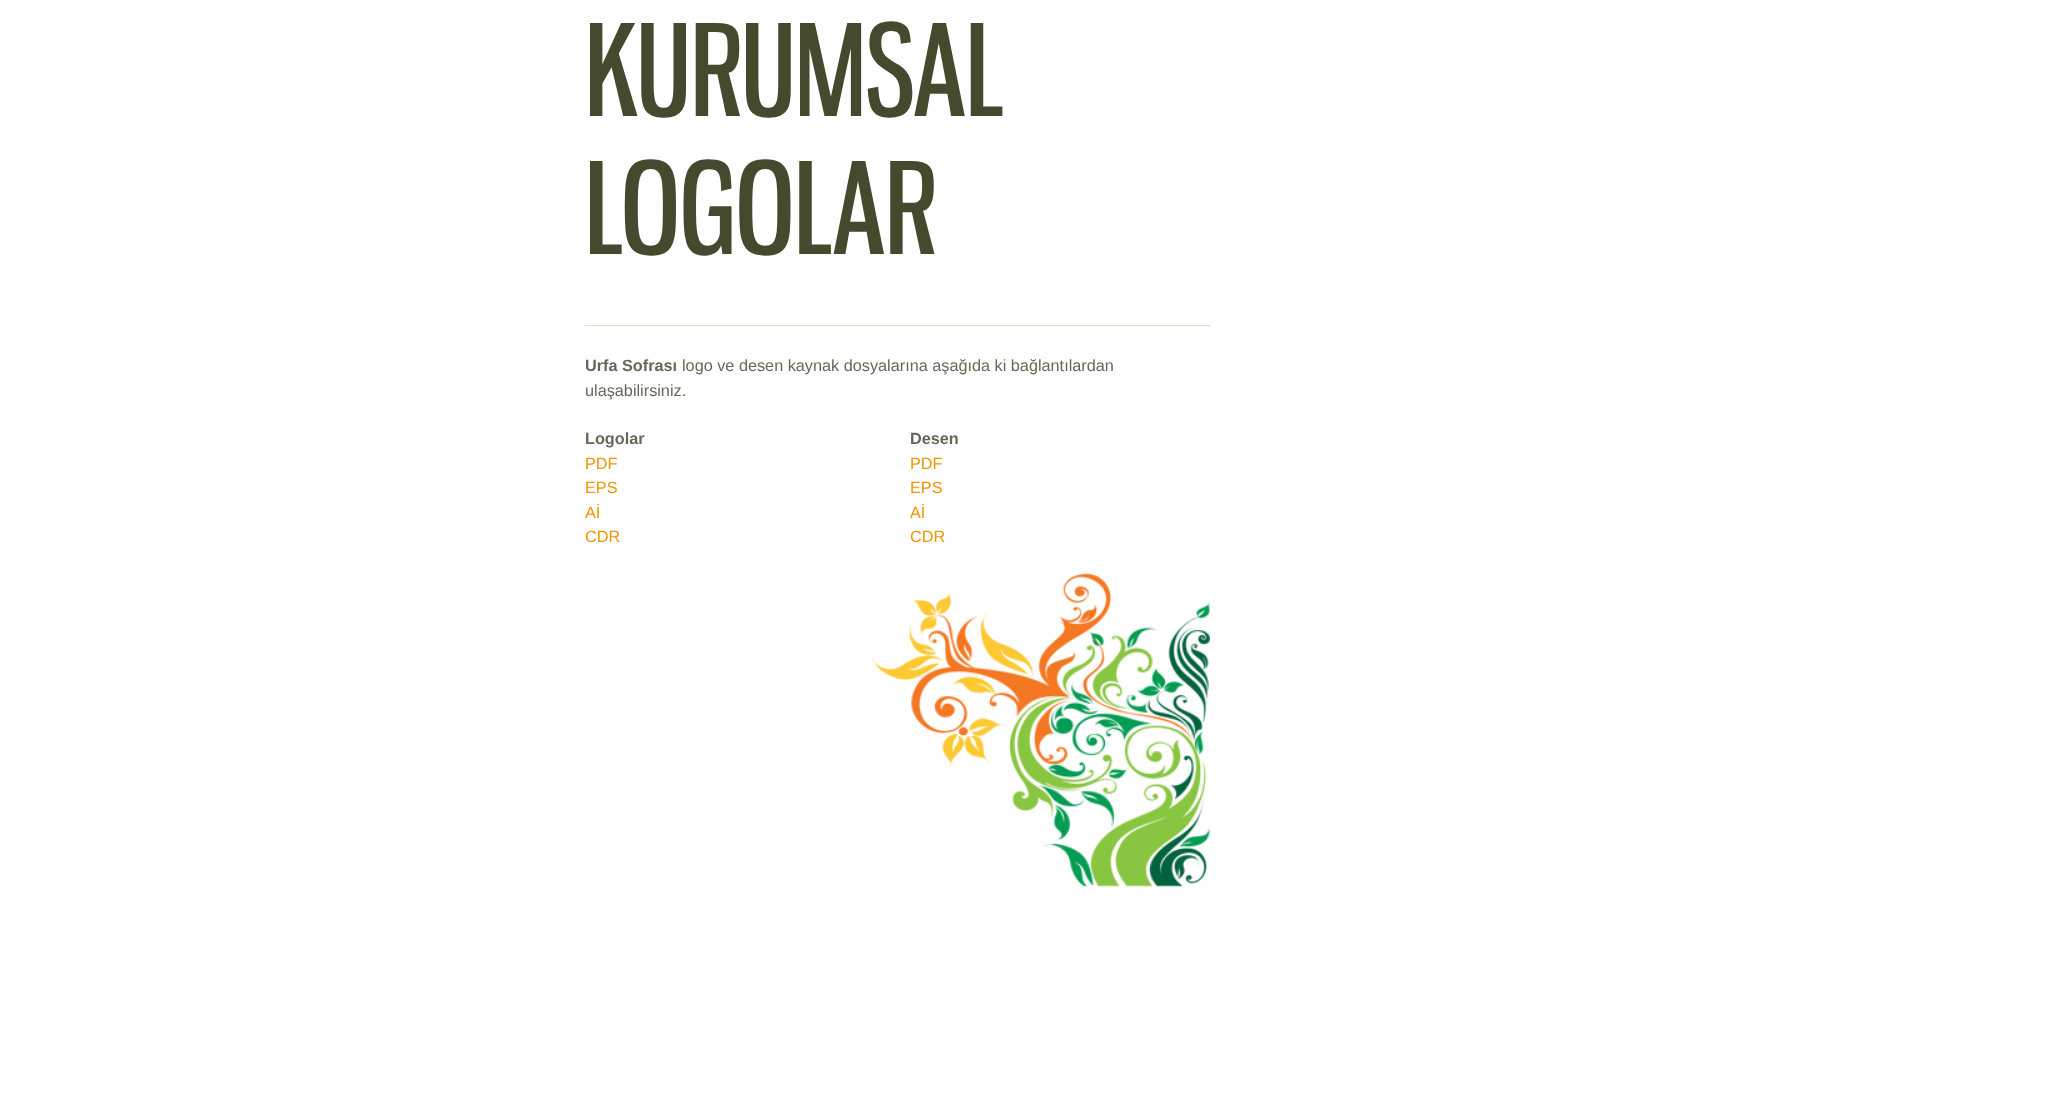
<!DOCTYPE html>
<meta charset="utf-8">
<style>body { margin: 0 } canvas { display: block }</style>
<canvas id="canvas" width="2045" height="1098"></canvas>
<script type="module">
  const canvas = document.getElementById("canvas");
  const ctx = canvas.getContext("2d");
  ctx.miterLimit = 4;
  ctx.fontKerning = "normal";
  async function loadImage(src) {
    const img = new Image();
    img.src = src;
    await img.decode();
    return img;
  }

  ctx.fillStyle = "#ffffff";
  ctx.fillRect(0, 0, 2045, 1098);
  ctx.font = "125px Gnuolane";
  ctx.fillStyle = "#454a2e";
  ctx.fillText("KURUMSAL", 585, 116);
  ctx.fillText("LOGOLAR", 585, 254);
  ctx.fillStyle = "#dadfbe";
  ctx.fillRect(585, 325, 625, 1);
  ctx.font = "bold 16.25px Liberation Sans";
  ctx.fillStyle = "#676858";
  ctx.fillText("Urfa Sofrası", 585, 371);
  ctx.font = "16.25px Liberation Sans";
  ctx.fillText("logo ve desen kaynak dosyalarına aşağıda ki bağlantılardan", 682, 371);
  ctx.fillText("ulaşabilirsiniz.", 585, 396);
  ctx.font = "bold 16.25px Liberation Sans";
  ctx.fillText("Logolar", 585, 444);
  ctx.font = "16.25px Liberation Sans";
  ctx.fillStyle = "#f19402";
  ctx.fillText("PDF", 585, 469);
  ctx.fillText("EPS", 585, 493);
  ctx.fillText("Aİ", 585, 518);
  ctx.fillText("CDR", 585, 542);
  ctx.font = "bold 16.25px Liberation Sans";
  ctx.fillStyle = "#676858";
  ctx.fillText("Desen", 910, 444);
  ctx.font = "16.25px Liberation Sans";
  ctx.fillStyle = "#f19402";
  ctx.fillText("PDF", 910, 469);
  ctx.fillText("EPS", 910, 493);
  ctx.fillText("Aİ", 910, 518);
  ctx.fillText("CDR", 910, 542);
  ctx.drawImage(await loadImage("img1.png"), 872, 573, 338, 314);
</script>
